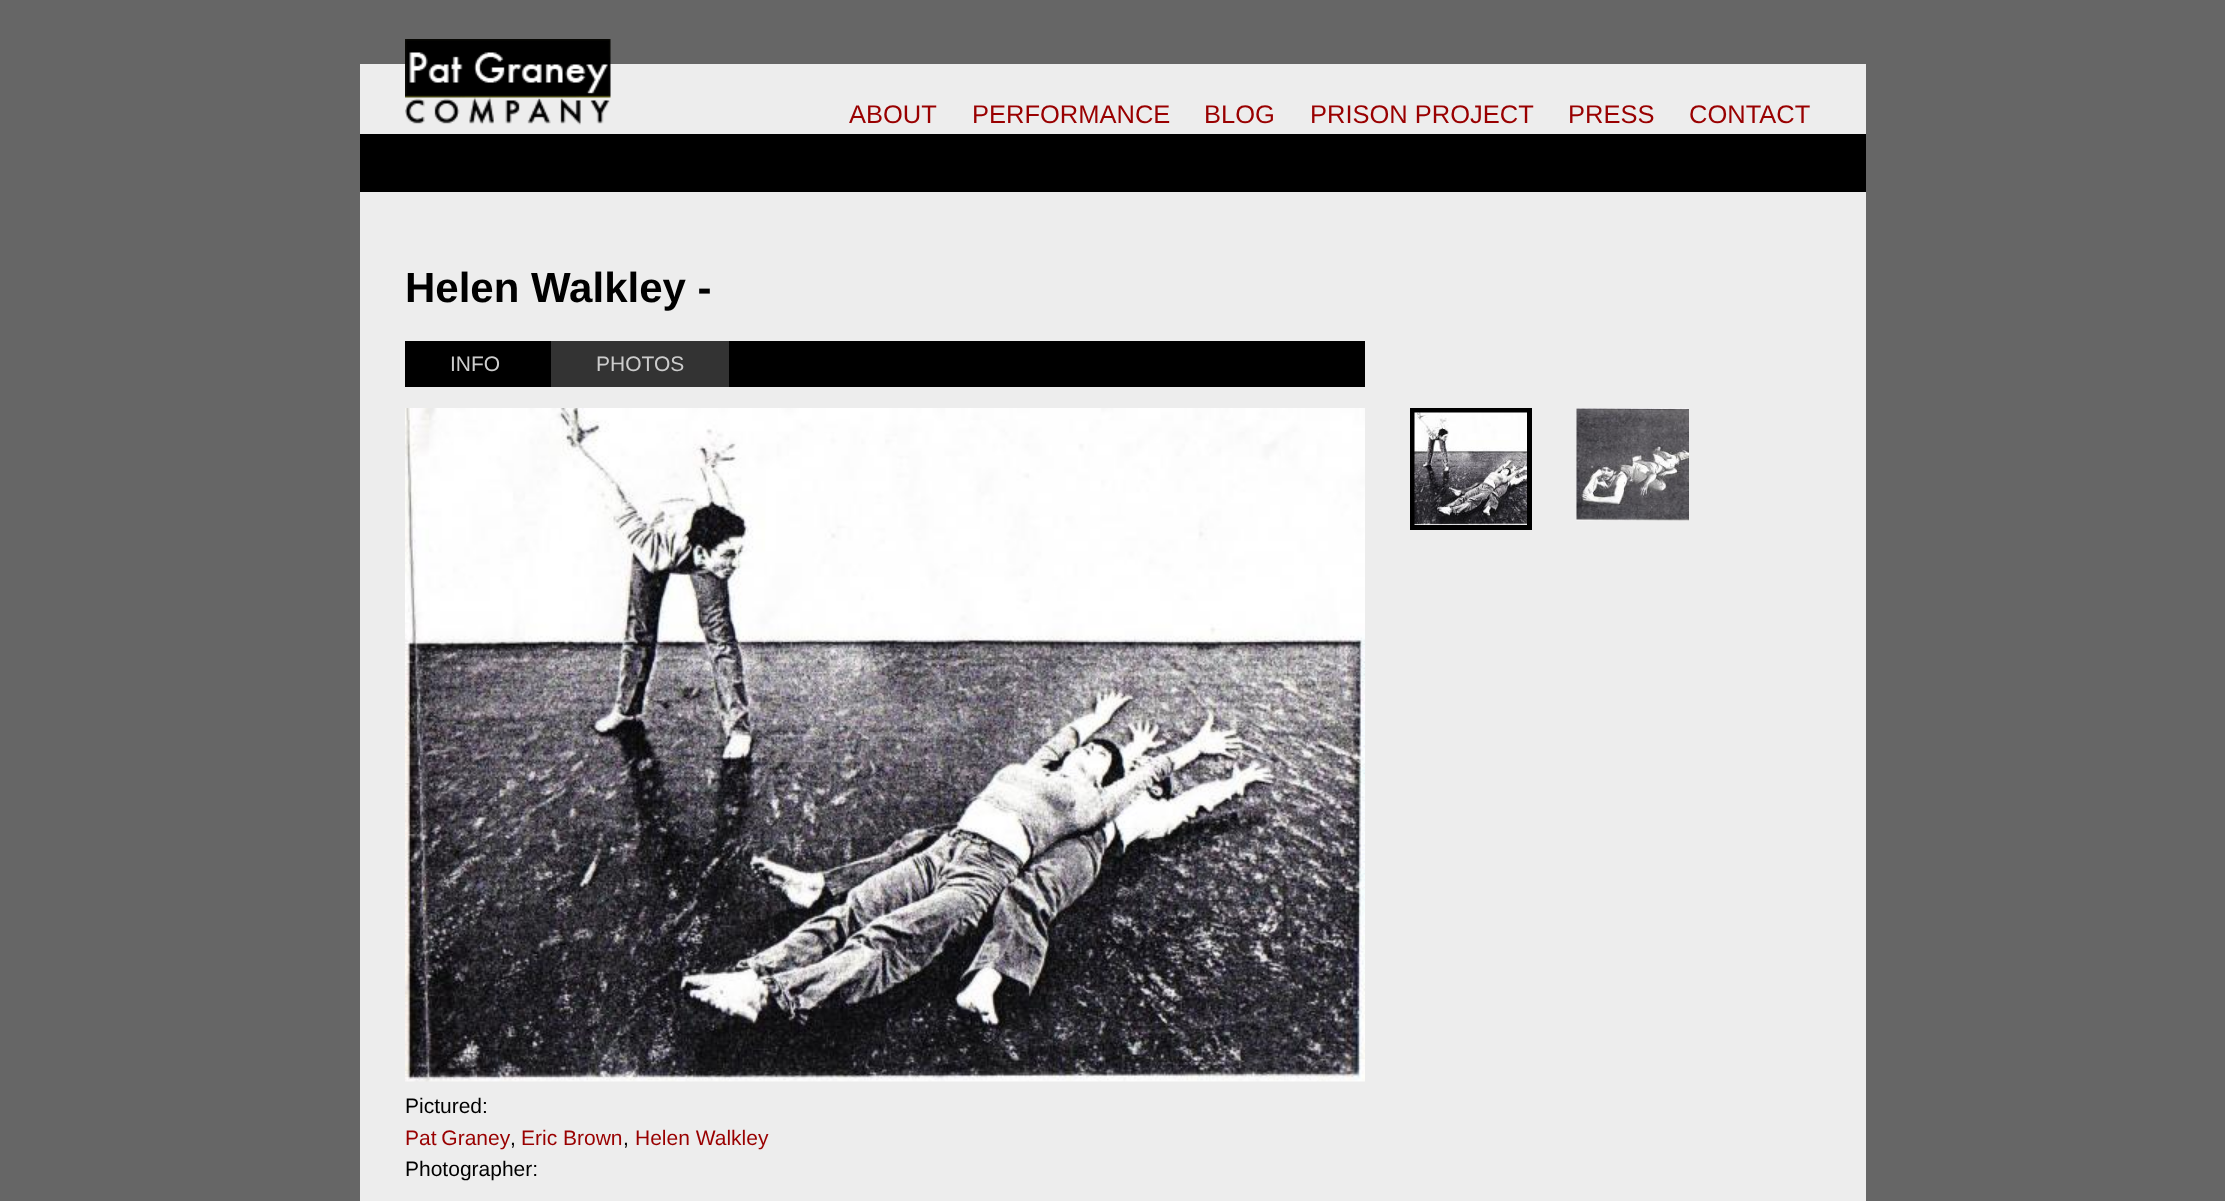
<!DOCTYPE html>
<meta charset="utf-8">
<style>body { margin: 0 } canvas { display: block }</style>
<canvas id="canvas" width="2225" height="1201"></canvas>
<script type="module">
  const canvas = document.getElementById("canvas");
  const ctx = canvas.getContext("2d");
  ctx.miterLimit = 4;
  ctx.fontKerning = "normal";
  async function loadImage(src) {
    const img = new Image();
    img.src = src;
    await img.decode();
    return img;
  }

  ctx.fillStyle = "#666666";
  ctx.fillRect(0, 0, 2225, 1201);
  ctx.fillStyle = "#ededed";
  ctx.fillRect(360, 64, 1506, 1137);
  ctx.drawImage(await loadImage("img1.png"), 405, 39, 206, 86);
  ctx.font = "25.5px Liberation Sans";
  ctx.fillStyle = "#990000";
  ctx.fillText("ABOUT", 849, 123);
  ctx.fillStyle = "#000000";
  ctx.fillRect(360, 134, 1506, 58);
  ctx.fillStyle = "#990000";
  ctx.fillText("PERFORMANCE", 972, 123);
  ctx.fillText("BLOG", 1204, 123);
  ctx.fillText("PRISON PROJECT", 1310, 123);
  ctx.fillText("PRESS", 1568, 123);
  ctx.fillText("CONTACT", 1689, 123);
  ctx.font = "bold 42px Liberation Sans";
  ctx.fillStyle = "#000000";
  ctx.fillText("Helen Walkley -", 405, 302);
  ctx.fillRect(405, 341, 960, 46);
  ctx.font = "21px Liberation Sans";
  ctx.fillStyle = "#cccccc";
  ctx.fillText("INFO", 450, 371);
  ctx.fillStyle = "#333333";
  ctx.fillRect(551, 341, 178, 46);
  ctx.fillStyle = "#cccccc";
  ctx.fillText("PHOTOS", 596, 371);
  ctx.strokeStyle = "#000000";
  ctx.lineWidth = 5;
  ctx.strokeRect(1412.5, 410.5, 117, 117);
  ctx.drawImage(await loadImage("img2.png"), 1414, 412, 113, 113);
  ctx.drawImage(await loadImage("img3.png"), 1576, 408, 113, 113);
  ctx.drawImage(await loadImage("img4.png"), 405, 408, 960, 674);
  ctx.fillStyle = "#000000";
  ctx.fillText("Pictured:", 405, 1113);
  ctx.wordSpacing = "-1px";
  ctx.fillStyle = "#990000";
  ctx.fillText("Pat Graney", 405, 1145);
  ctx.wordSpacing = "0px";
  ctx.fillStyle = "#000000";
  ctx.fillText(",", 510, 1145);
  ctx.fillStyle = "#990000";
  ctx.fillText("Eric Brown", 521, 1145);
  ctx.fillStyle = "#000000";
  ctx.fillText(",", 623, 1145);
  ctx.fillStyle = "#990000";
  ctx.fillText("Helen Walkley", 635, 1145);
  ctx.fillStyle = "#000000";
  ctx.fillText("Photographer:", 405, 1176);
</script>
